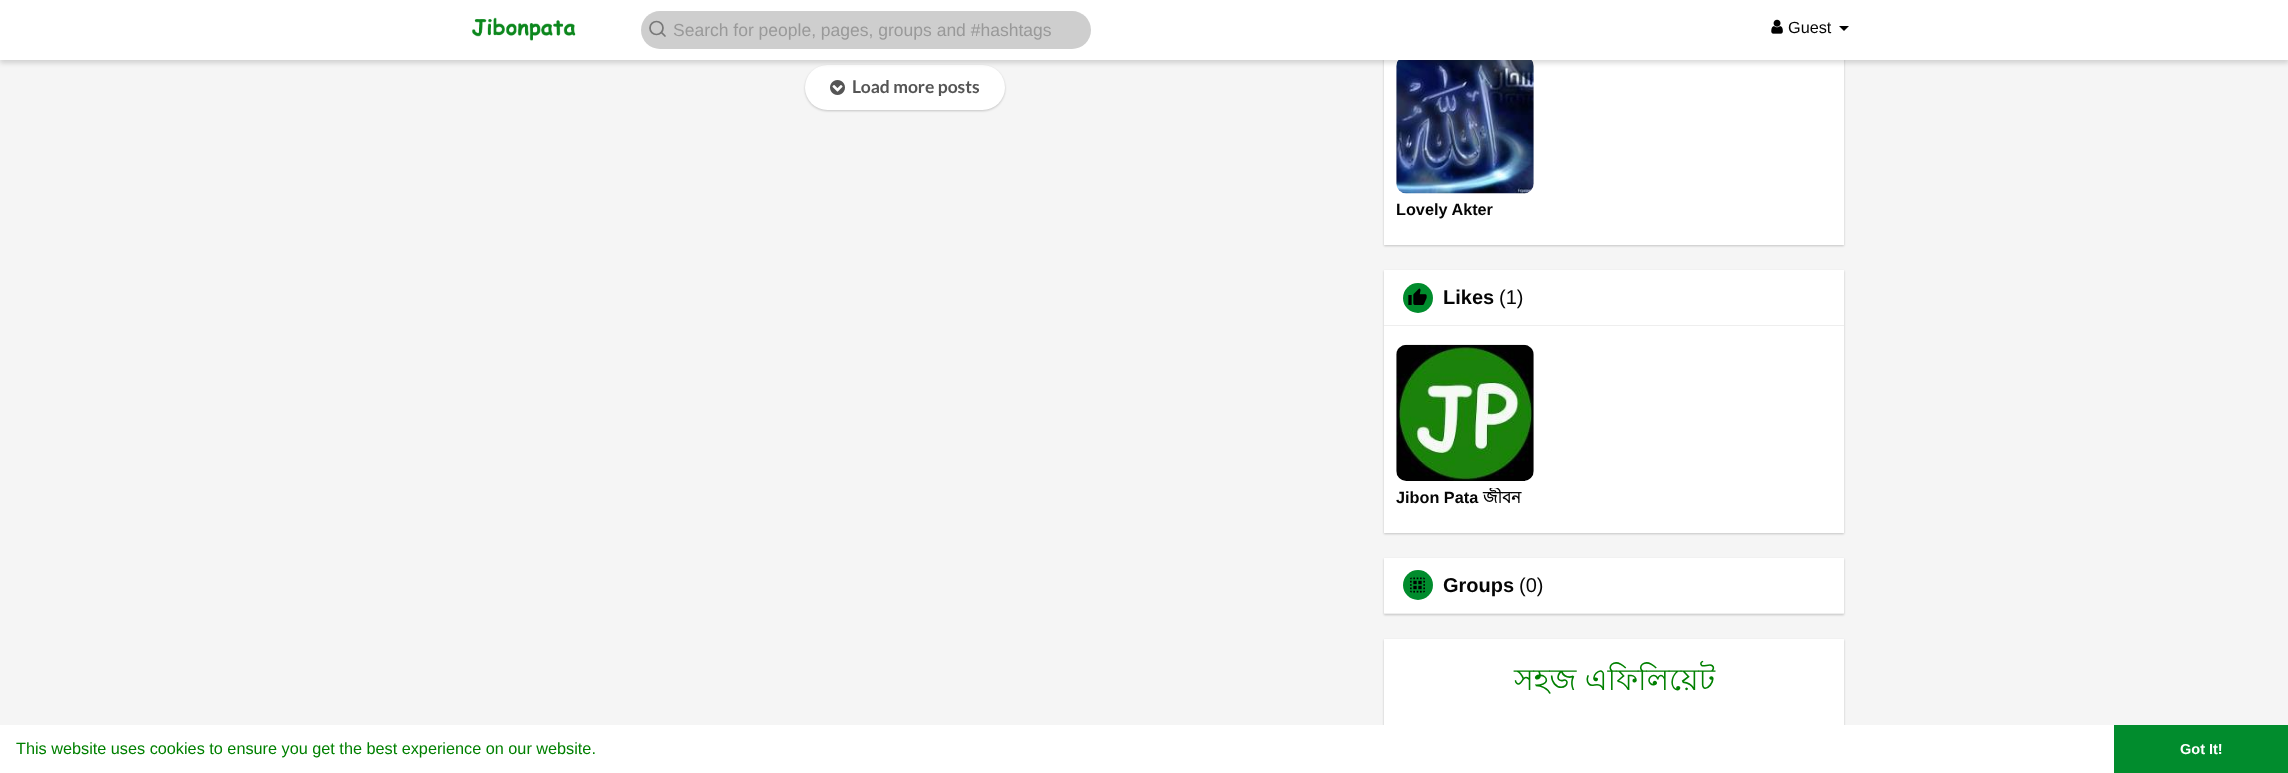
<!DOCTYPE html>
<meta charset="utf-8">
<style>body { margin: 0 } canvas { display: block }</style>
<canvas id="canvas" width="2288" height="773"></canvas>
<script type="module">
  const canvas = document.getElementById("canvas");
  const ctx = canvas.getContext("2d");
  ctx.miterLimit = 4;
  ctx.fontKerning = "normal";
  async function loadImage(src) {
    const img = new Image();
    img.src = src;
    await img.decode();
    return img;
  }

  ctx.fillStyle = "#f5f5f5";
  ctx.fillRect(0, 0, 2288, 773);
  ctx.fillStyle = "rgba(0, 0, 0, 0.2)";
  ctx.filter = "blur(1px)";
  ctx.beginPath();
  ctx.roundRect(805, 66, 200, 45, 22.5);
  ctx.fill();
  ctx.filter = "none";
  ctx.fillStyle = "#ffffff";
  ctx.beginPath();
  ctx.roundRect(805, 65, 200, 45, 22.5);
  ctx.fill();
  ctx.fillStyle = "rgba(0, 0, 0, 0.2)";
  ctx.filter = "blur(1px)";
  ctx.beginPath();
  ctx.rect(1384, -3, 460, 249);
  ctx.fill();
  ctx.filter = "none";
  ctx.fillStyle = "#ffffff";
  ctx.fillRect(1384, 60, 460, 185);
  ctx.drawImage(await loadImage("img4.png"), 1396, 60, 138, 134);
  ctx.fillStyle = "rgba(0, 0, 0, 0.15)";
  ctx.filter = "blur(2.5px)";
  ctx.beginPath();
  ctx.rect(0, 3, 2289, 60);
  ctx.fill();
  ctx.filter = "none";
  ctx.fillStyle = "#ffffff";
  ctx.fillRect(0, 0, 2288, 60);
  ctx.drawImage(await loadImage("img1.png"), 471, 17, 105, 24);
  ctx.fillStyle = "#cecece";
  ctx.beginPath();
  ctx.roundRect(641, 11, 450, 38, 19);
  ctx.fill();
  ctx.beginPath();
  ctx.arc(656.5, 28, 6.5, 0, Math.PI * 2);
  ctx.strokeStyle = "#787878";
  ctx.lineWidth = 1.7;
  ctx.stroke();
  ctx.beginPath();
  ctx.moveTo(665, 36);
  ctx.lineTo(661.5, 32.5);
  ctx.lineCap = "round";
  ctx.lineJoin = "round";
  ctx.stroke();
  ctx.font = "17.5px Liberation Sans";
  ctx.fillStyle = "#999999";
  ctx.fillText("Search for people, pages, groups and #hashtags", 673, 36);
  ctx.drawImage(await loadImage("img2.png"), 1771, 19, 12, 15);
  ctx.font = "16.25px Liberation Sans";
  ctx.fillStyle = "#050505";
  ctx.fillText("Guest", 1788, 33);
  ctx.fillStyle = "#000000";
  ctx.beginPath();
  ctx.moveTo(1839, 26);
  ctx.lineTo(1849, 26);
  ctx.lineTo(1844, 31);
  ctx.closePath();
  ctx.fill();
  ctx.drawImage(await loadImage("img3.png"), 830, 80, 15, 15);
  ctx.font = "bold 17.5px Lato";
  ctx.fillStyle = "#555555";
  ctx.fillText("Load more posts", 852, 93);
  ctx.font = "bold 16.25px Liberation Sans";
  ctx.fillStyle = "#050505";
  ctx.fillText("Lovely Akter", 1396, 215);
  ctx.fillStyle = "rgba(0, 0, 0, 0.2)";
  ctx.filter = "blur(1px)";
  ctx.beginPath();
  ctx.rect(1384, 271, 460, 263);
  ctx.fill();
  ctx.filter = "none";
  ctx.fillStyle = "#ffffff";
  ctx.fillRect(1384, 270, 460, 263);
  ctx.fillStyle = "#eeeeee";
  ctx.fillRect(1384, 325, 460, 1);
  ctx.fillStyle = "#018c2d";
  ctx.beginPath();
  ctx.arc(1418, 298, 15, 0, Math.PI * 2);
  ctx.fill();
  ctx.drawImage(await loadImage("img5.png"), 1408, 288, 19, 17);
  ctx.font = "bold 20px Liberation Sans";
  ctx.fillStyle = "#050505";
  ctx.fillText("Likes", 1443, 304);
  ctx.font = "20px Liberation Sans";
  ctx.fillText("(1)", 1499, 304);
  ctx.drawImage(await loadImage("img6.png"), 1396, 344, 138, 137);
  ctx.font = "bold 16.25px Liberation Sans";
  ctx.fillText("Jibon Pata", 1396, 503);
  ctx.save();
  ctx.beginPath();
  ctx.rect(1396, 488, 138, 20);
  ctx.clip();
  ctx.font = "bold 16.25px Lohit Bengali";
  ctx.fillText("জীবন", 1483, 503);
  ctx.restore();
  ctx.fillStyle = "rgba(0, 0, 0, 0.2)";
  ctx.filter = "blur(1px)";
  ctx.beginPath();
  ctx.rect(1384, 559, 460, 56);
  ctx.fill();
  ctx.filter = "none";
  ctx.fillStyle = "#ffffff";
  ctx.fillRect(1384, 558, 460, 55);
  ctx.fillStyle = "#eeeeee";
  ctx.fillRect(1384, 613, 460, 1);
  ctx.fillStyle = "#018c2d";
  ctx.beginPath();
  ctx.arc(1418, 585, 15, 0, Math.PI * 2);
  ctx.fill();
  ctx.drawImage(await loadImage("img7.png"), 1410, 577, 15, 16);
  ctx.font = "bold 20px Liberation Sans";
  ctx.fillStyle = "#050505";
  ctx.fillText("Groups", 1443, 592);
  ctx.font = "20px Liberation Sans";
  ctx.fillText("(0)", 1519, 592);
  ctx.fillStyle = "rgba(0, 0, 0, 0.2)";
  ctx.filter = "blur(1px)";
  ctx.beginPath();
  ctx.rect(1384, 640, 460, 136);
  ctx.fill();
  ctx.filter = "none";
  ctx.fillStyle = "#ffffff";
  ctx.fillRect(1384, 639, 460, 86);
  ctx.font = "30px Lohit Bengali";
  ctx.fillStyle = "#008000";
  ctx.fillText("সহজ এফিলিয়েট", 1514, 690);
  ctx.fillStyle = "#ffffff";
  ctx.fillRect(0, 725, 2114, 48);
  ctx.font = "16.25px Liberation Sans";
  ctx.fillStyle = "#008000";
  ctx.fillText("This website uses cookies to ensure you get the best experience on our website.", 16, 754);
  ctx.fillStyle = "#018c2d";
  ctx.fillRect(2114, 725, 174, 48);
  ctx.font = "bold 14.5px Liberation Sans";
  ctx.fillStyle = "#ffffff";
  ctx.fillText("Got It!", 2180, 754);
</script>
